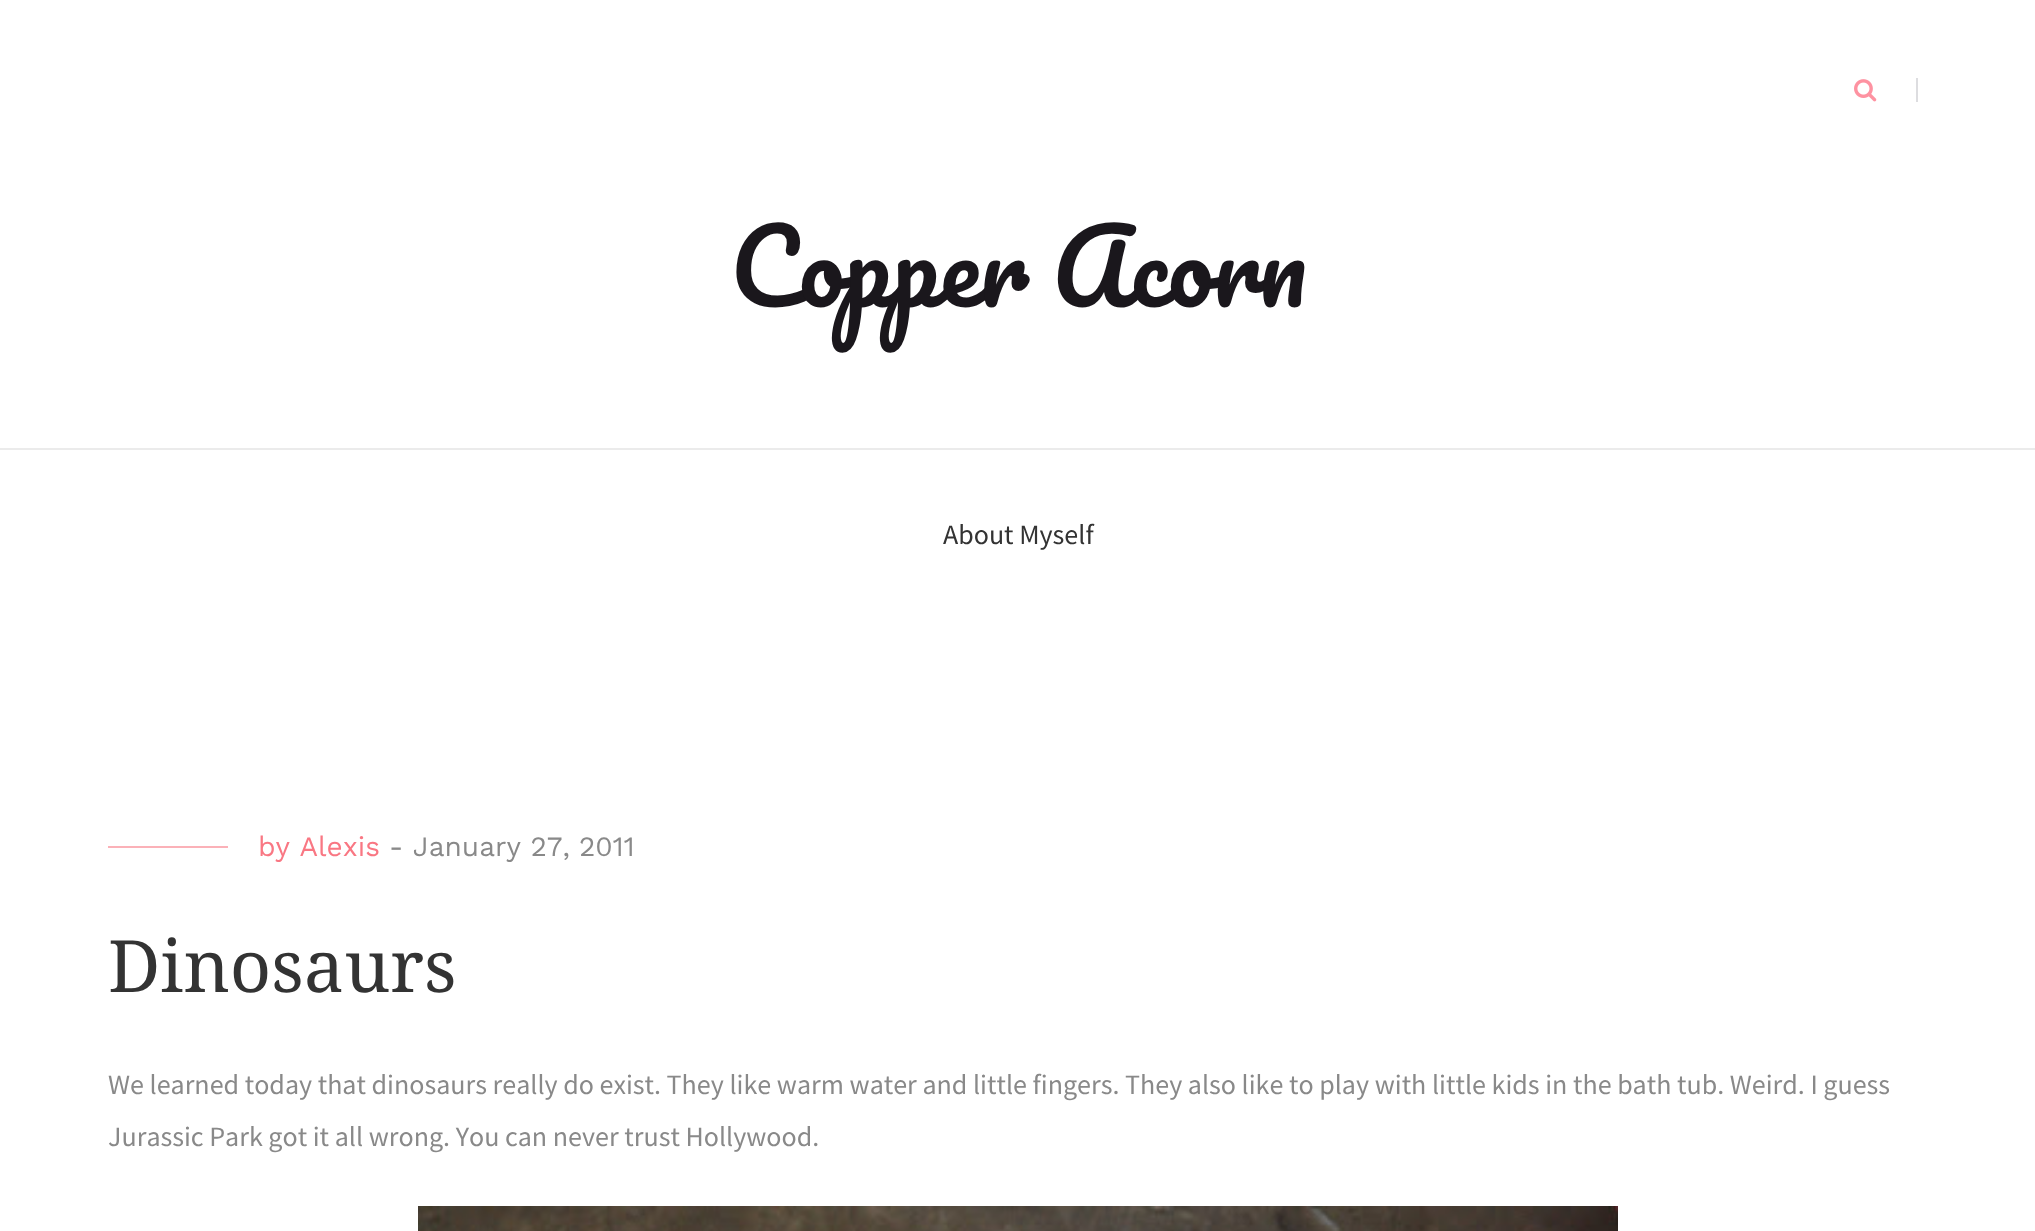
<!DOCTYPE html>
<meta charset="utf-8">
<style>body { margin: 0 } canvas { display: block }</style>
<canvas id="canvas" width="2035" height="1231"></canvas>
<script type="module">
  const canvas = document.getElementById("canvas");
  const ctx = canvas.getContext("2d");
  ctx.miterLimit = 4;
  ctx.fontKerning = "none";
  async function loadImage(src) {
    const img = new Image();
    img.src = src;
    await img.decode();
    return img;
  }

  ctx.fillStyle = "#ffffff";
  ctx.fillRect(0, 0, 2035, 1231);
  ctx.fillStyle = "#ebebeb";
  ctx.fillRect(0, 448, 2035, 2);
  ctx.fillStyle = "#dddde0";
  ctx.fillRect(1916, 78, 2, 24);
  ctx.drawImage(await loadImage("img1.png"), 1854, 79, 23, 23);
  ctx.wordSpacing = "-3px";
  ctx.font = "100px Pacifico";
  ctx.fillStyle = "#1a171c";
  ctx.fillText("Copper Acorn", 730, 307);
  ctx.wordSpacing = "0px";
  ctx.font = "28px Source Sans Pro";
  ctx.fillStyle = "#333333";
  ctx.fillText("About Myself", 943, 544);
  ctx.fillStyle = "#fbb1b8";
  ctx.fillRect(108, 846, 120, 2);
  ctx.font = "28px Work Sans";
  ctx.fillStyle = "#f97783";
  ctx.fillText("by Alexis", 258, 856);
  ctx.fillStyle = "#898989";
  ctx.fillText("- January 27,", 389, 856);
  ctx.fillText("2011", 579, 856);
  ctx.font = "72px Droid Serif";
  ctx.fillStyle = "#333333";
  ctx.fillText("Dinosaurs", 108, 992);
  ctx.font = "28px Source Sans Pro";
  ctx.fillStyle = "#898989";
  ctx.fillText("We learned today that dinosaurs really do exist. They like warm water and little fingers.", 108, 1094);
  ctx.fillText("They also like to play with little kids in the bath tub. Weird. I guess", 1125, 1094);
  ctx.fillText("Jurassic Park got it all wrong. You can never trust Hollywood.", 108, 1146);
  ctx.drawImage(await loadImage("img2.png"), 418, 1206, 1200, 25);
</script>
